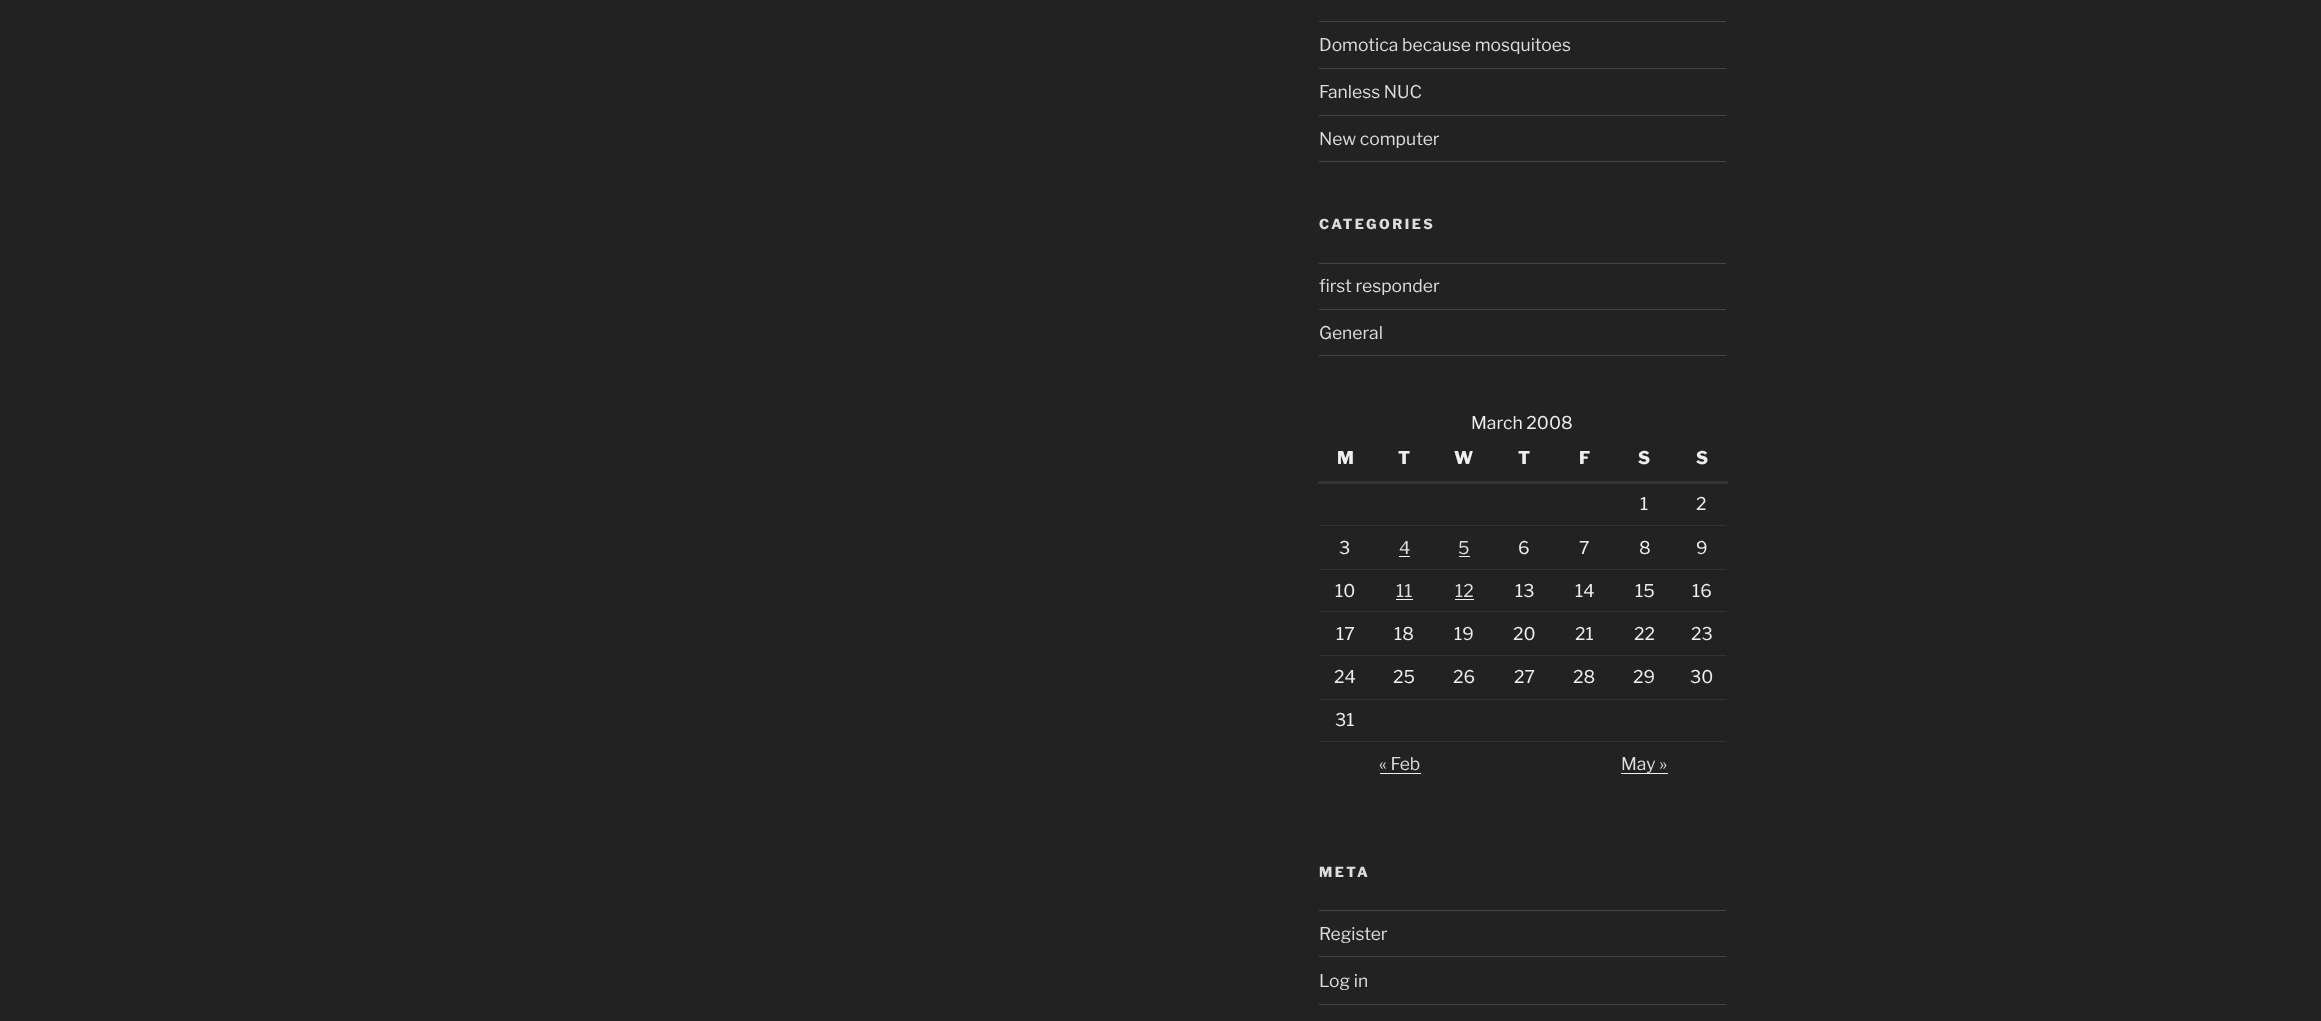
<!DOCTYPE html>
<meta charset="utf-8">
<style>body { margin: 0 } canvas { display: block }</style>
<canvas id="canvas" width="2321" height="1021"></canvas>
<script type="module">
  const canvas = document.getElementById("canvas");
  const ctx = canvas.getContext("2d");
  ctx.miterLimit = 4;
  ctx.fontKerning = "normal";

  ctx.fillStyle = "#222222";
  ctx.fillRect(0, 0, 2321, 1021);
  ctx.fillStyle = "#444444";
  ctx.fillRect(1319, 21, 407, 1);
  ctx.fillRect(1319, 68, 407, 1);
  ctx.font = "100 17.5px Libre Franklin";
  ctx.fillStyle = "#dddddd";
  ctx.fillText("Domotica because mosquitoes", 1319, 51);
  ctx.fillStyle = "#444444";
  ctx.fillRect(1319, 115, 407, 1);
  ctx.fillStyle = "#dddddd";
  ctx.fillText("Fanless NUC", 1319, 98);
  ctx.fillStyle = "#444444";
  ctx.fillRect(1319, 161, 407, 1);
  ctx.fillStyle = "#dddddd";
  ctx.fillText("New computer", 1319, 145);
  ctx.letterSpacing = "2.5px";
  ctx.font = "100 13.75px 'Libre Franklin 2'";
  ctx.fillText("CATEGORIES", 1319, 229);
  ctx.fillStyle = "#444444";
  ctx.fillRect(1319, 263, 407, 1);
  ctx.fillRect(1319, 309, 407, 1);
  ctx.letterSpacing = "0px";
  ctx.font = "100 17.5px Libre Franklin";
  ctx.fillStyle = "#dddddd";
  ctx.fillText("first responder", 1319, 292);
  ctx.fillStyle = "#444444";
  ctx.fillRect(1319, 355, 407, 1);
  ctx.fillStyle = "#dddddd";
  ctx.fillText("General", 1319, 339);
  ctx.fillStyle = "#eeeeee";
  ctx.fillText("March 2008", 1471, 429);
  ctx.font = "100 17.5px 'Libre Franklin 2'";
  ctx.fillText("M", 1337, 464);
  ctx.fillText("T", 1398, 464);
  ctx.fillText("W", 1454, 464);
  ctx.fillText("T", 1518, 464);
  ctx.fillText("F", 1579, 464);
  ctx.fillText("S", 1638, 464);
  ctx.fillStyle = "#333333";
  ctx.fillRect(1318, 481, 410, 3);
  ctx.fillStyle = "#eeeeee";
  ctx.fillText("S", 1696, 464);
  ctx.fillStyle = "#333333";
  ctx.fillRect(1319, 525, 407, 1);
  ctx.font = "100 17.5px Libre Franklin";
  ctx.fillStyle = "#eeeeee";
  ctx.fillText("1", 1640, 510);
  ctx.fillText("2", 1696, 510);
  ctx.fillStyle = "#333333";
  ctx.fillRect(1319, 569, 407, 1);
  ctx.fillStyle = "#eeeeee";
  ctx.fillText("3", 1339, 554);
  ctx.fillStyle = "#dddddd";
  ctx.fillText("4", 1399, 554);
  ctx.fillStyle = "#f0f0f0";
  ctx.fillRect(1399, 556, 11, 1);
  ctx.fillStyle = "#dddddd";
  ctx.fillText("5", 1458, 554);
  ctx.fillStyle = "#f0f0f0";
  ctx.fillRect(1459, 556, 11, 1);
  ctx.fillStyle = "#eeeeee";
  ctx.fillText("6", 1518, 554);
  ctx.fillText("7", 1579, 554);
  ctx.fillText("8", 1639, 554);
  ctx.fillText("9", 1696, 554);
  ctx.fillStyle = "#333333";
  ctx.fillRect(1319, 611, 407, 1);
  ctx.fillStyle = "#eeeeee";
  ctx.fillText("10", 1335, 597);
  ctx.fillStyle = "#dddddd";
  ctx.fillText("11", 1396, 597);
  ctx.fillStyle = "#f0f0f0";
  ctx.fillRect(1396, 599, 17, 1);
  ctx.fillStyle = "#dddddd";
  ctx.fillText("12", 1455, 597);
  ctx.fillStyle = "#f0f0f0";
  ctx.fillRect(1455, 599, 19, 1);
  ctx.fillStyle = "#eeeeee";
  ctx.fillText("13", 1515, 597);
  ctx.fillText("14", 1575, 597);
  ctx.fillText("15", 1635, 597);
  ctx.fillText("16", 1692, 597);
  ctx.fillStyle = "#333333";
  ctx.fillRect(1319, 655, 407, 1);
  ctx.fillStyle = "#eeeeee";
  ctx.fillText("17", 1336, 640);
  ctx.fillText("18", 1394, 640);
  ctx.fillText("19", 1454, 640);
  ctx.fillText("20", 1513, 640);
  ctx.fillText("21", 1575, 640);
  ctx.fillText("22", 1634, 640);
  ctx.fillText("23", 1691, 640);
  ctx.fillStyle = "#333333";
  ctx.fillRect(1319, 699, 407, 1);
  ctx.fillStyle = "#eeeeee";
  ctx.fillText("24", 1334, 683);
  ctx.fillText("25", 1393, 683);
  ctx.fillText("26", 1453, 683);
  ctx.fillText("27", 1514, 683);
  ctx.fillText("28", 1573, 683);
  ctx.fillText("29", 1633, 683);
  ctx.fillText("30", 1690, 683);
  ctx.fillStyle = "#333333";
  ctx.fillRect(1319, 741, 407, 1);
  ctx.fillStyle = "#eeeeee";
  ctx.fillText("31", 1335, 726);
  ctx.fillStyle = "#dddddd";
  ctx.fillText("« Feb", 1379, 770);
  ctx.fillStyle = "#f0f0f0";
  ctx.fillRect(1380, 773, 41, 1);
  ctx.fillStyle = "#dddddd";
  ctx.fillText("May »", 1621, 770);
  ctx.fillStyle = "#f0f0f0";
  ctx.fillRect(1621, 773, 47, 1);
  ctx.letterSpacing = "2.5px";
  ctx.font = "100 13.75px 'Libre Franklin 2'";
  ctx.fillStyle = "#dddddd";
  ctx.fillText("META", 1319, 877);
  ctx.fillStyle = "#444444";
  ctx.fillRect(1319, 910, 407, 1);
  ctx.fillRect(1319, 956, 407, 1);
  ctx.letterSpacing = "0px";
  ctx.font = "100 17.5px Libre Franklin";
  ctx.fillStyle = "#dddddd";
  ctx.fillText("Register", 1319, 940);
  ctx.fillStyle = "#444444";
  ctx.fillRect(1319, 1004, 407, 1);
  ctx.fillStyle = "#dddddd";
  ctx.fillText("Log in", 1319, 987);
</script>
